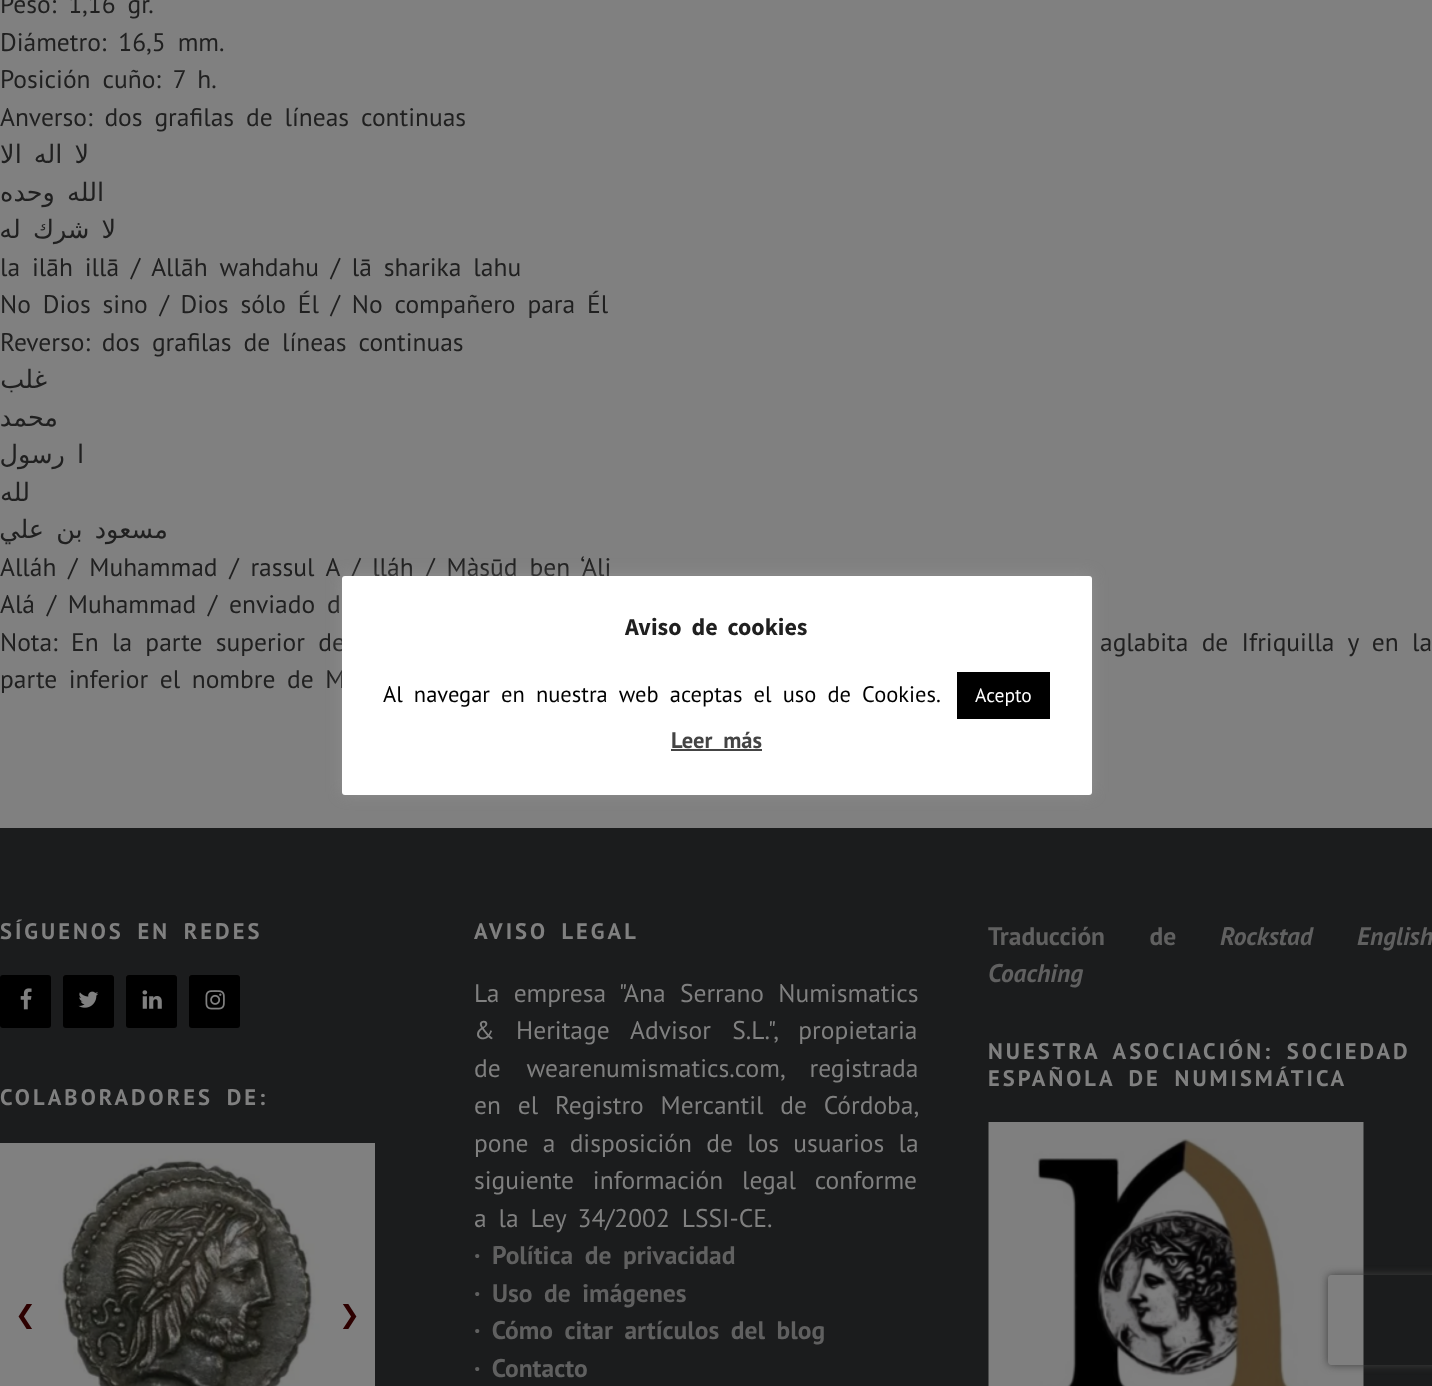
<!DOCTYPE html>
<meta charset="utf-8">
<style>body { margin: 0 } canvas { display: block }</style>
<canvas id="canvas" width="1432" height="1386"></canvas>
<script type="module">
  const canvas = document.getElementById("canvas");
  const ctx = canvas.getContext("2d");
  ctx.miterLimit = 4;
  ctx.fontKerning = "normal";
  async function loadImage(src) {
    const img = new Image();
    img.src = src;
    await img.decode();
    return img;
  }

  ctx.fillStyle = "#808080";
  ctx.fillRect(0, 0, 1432, 1386);
  ctx.wordSpacing = "5.1px";
  ctx.font = "25.5px PT Sans";
  ctx.fillStyle = "#202020";
  ctx.fillText("Peso: 1,16 gr.", 0, 13);
  ctx.fillText("Diámetro: 16,5 mm.", 0, 51);
  ctx.fillText("Posición cuño: 7 h.", 0, 88);
  ctx.fillText("Anverso: dos grafilas de líneas continuas", 0, 126);
  ctx.wordSpacing = "4px";
  ctx.direction = "rtl";
  ctx.font = "25.5px DejaVu Sans";
  ctx.fillText("لا اله الا", 89, 163);
  ctx.fillText("الله وحده", 104, 201);
  ctx.fillText("لا شرك له", 116, 238);
  ctx.wordSpacing = "5.1px";
  ctx.direction = "ltr";
  ctx.font = "25.5px PT Sans";
  ctx.fillText("la ilāh illā / Allāh wahdahu / lā sharika lahu", 0, 276);
  ctx.fillText("No Dios sino / Dios sólo Él / No compañero para Él", 0, 313);
  ctx.fillText("Reverso: dos grafilas de líneas continuas", 0, 351);
  ctx.wordSpacing = "0px";
  ctx.direction = "rtl";
  ctx.font = "25.5px DejaVu Sans";
  ctx.fillText("غلب", 47, 388);
  ctx.fillText("محمد", 58, 426);
  ctx.wordSpacing = "4px";
  ctx.fillText("ا رسول", 84, 463);
  ctx.wordSpacing = "0px";
  ctx.fillText("لله", 30, 501);
  ctx.wordSpacing = "4px";
  ctx.fillText("مسعود بن علي", 168, 538);
  ctx.wordSpacing = "5.1px";
  ctx.direction = "ltr";
  ctx.font = "25.5px PT Sans";
  ctx.fillText("Alláh / Muhammad / rassul A / lláh / Màsūd ben ‘Ali", 0, 576);
  ctx.fillText("Alá / Muhammad / enviado d", 0, 613);
  ctx.wordSpacing = "6.5px";
  ctx.fillText("Nota: En la parte superior de", 0, 651);
  ctx.fillText("aglabita de Ifriquilla y en la", 1100, 651);
  ctx.wordSpacing = "4.75px";
  ctx.fillText("parte inferior el nombre de M", 0, 688);
  ctx.fillStyle = "#1b1c1d";
  ctx.fillRect(0, 828, 1432, 558);
  ctx.letterSpacing = "3px";
  ctx.wordSpacing = "5.1px";
  ctx.font = "bold 22.5px PT Sans";
  ctx.fillStyle = "#808080";
  ctx.fillText("SÍGUENOS EN REDES", 0, 939);
  ctx.fillStyle = "#000000";
  ctx.beginPath();
  ctx.roundRect(0, 975, 51, 53, 3);
  ctx.fill();
  ctx.drawImage(await loadImage("img1.png"), 20, 988, 12, 22);
  ctx.fillStyle = "#201f1f";
  ctx.fillRect(63, 975, 51, 3);
  ctx.fillStyle = "#000000";
  ctx.beginPath();
  ctx.roundRect(63, 975, 51, 53, 3);
  ctx.fill();
  ctx.drawImage(await loadImage("img2.png"), 78, 991, 21, 17);
  ctx.fillStyle = "#201f1f";
  ctx.fillRect(126, 975, 51, 3);
  ctx.fillStyle = "#000000";
  ctx.beginPath();
  ctx.roundRect(126, 975, 51, 53, 3);
  ctx.fill();
  ctx.drawImage(await loadImage("img3.png"), 142, 990, 20, 19);
  ctx.fillStyle = "#201f1f";
  ctx.fillRect(189, 975, 51, 3);
  ctx.fillStyle = "#000000";
  ctx.beginPath();
  ctx.roundRect(189, 975, 51, 53, 3);
  ctx.fill();
  ctx.drawImage(await loadImage("img4.png"), 205, 990, 20, 20);
  ctx.fillStyle = "#808080";
  ctx.fillText("COLABORADORES DE:", 0, 1105);
  ctx.drawImage(await loadImage("img5.png"), 0, 1143, 375, 243);
  ctx.fillText("AVISO LEGAL", 474, 939);
  ctx.letterSpacing = "0px";
  ctx.wordSpacing = "7.5px";
  ctx.font = "25.5px PT Sans";
  ctx.fillText("La empresa \"Ana Serrano Numismatics", 474, 1002);
  ctx.wordSpacing = "14.5px";
  ctx.fillText("& Heritage Advisor S.L.\", propietaria", 474, 1039);
  ctx.wordSpacing = "19px";
  ctx.fillText("de wearenumismatics.com, registrada", 474, 1077);
  ctx.wordSpacing = "10px";
  ctx.fillText("en el Registro Mercantil de Córdoba,", 474, 1114);
  ctx.wordSpacing = "7.5px";
  ctx.fillText("pone a disposición de los usuarios la", 474, 1152);
  ctx.wordSpacing = "12px";
  ctx.fillText("siguiente información legal conforme", 474, 1189);
  ctx.wordSpacing = "5.1px";
  ctx.fillText("a la Ley 34/2002 LSSI-CE.", 474, 1227);
  ctx.font = "bold 25.5px PT Sans";
  ctx.fillStyle = "#606060";
  ctx.fillText("· Política de privacidad", 474, 1264);
  ctx.fillText("· Uso de imágenes", 474, 1302);
  ctx.fillText("· Cómo citar artículos del blog", 474, 1339);
  ctx.fillText("· Contacto", 474, 1377);
  ctx.wordSpacing = "38px";
  ctx.fillText("Traducción de", 988, 945);
  ctx.font = "italic bold 25.5px PT Sans";
  ctx.fillText("Rockstad English", 1220, 945);
  ctx.wordSpacing = "0px";
  ctx.fillText("Coaching", 988, 982);
  ctx.letterSpacing = "3px";
  ctx.wordSpacing = "5.1px";
  ctx.font = "bold 22.5px PT Sans";
  ctx.fillStyle = "#808080";
  ctx.fillText("NUESTRA ASOCIACIÓN: SOCIEDAD", 988, 1059);
  ctx.fillText("ESPAÑOLA DE NUMISMÁTICA", 988, 1086);
  ctx.drawImage(await loadImage("img6.png"), 988, 1122, 376, 264);
  ctx.fillStyle = "rgba(172, 171, 171, 0.3)";
  ctx.filter = "blur(7.5px)";
  ctx.beginPath();
  ctx.roundRect(342, 575, 750, 219, 3);
  ctx.fill();
  ctx.filter = "none";
  ctx.fillStyle = "#ffffff";
  ctx.beginPath();
  ctx.roundRect(342, 576, 750, 219, 3);
  ctx.fill();
  ctx.letterSpacing = "0px";
  ctx.font = "bold 24px Source Sans Pro";
  ctx.fillStyle = "#202020";
  ctx.fillText("Aviso de cookies", 625, 635);
  ctx.font = "22.5px PT Sans";
  ctx.fillStyle = "#000000";
  ctx.fillText("Al navegar en nuestra web aceptas el uso de Cookies.", 383, 702);
  ctx.fillRect(957, 672, 93, 47);
  ctx.wordSpacing = "0px";
  ctx.font = "19.5px PT Sans";
  ctx.fillStyle = "#ffffff";
  ctx.fillText("Acepto", 975, 702);
  ctx.wordSpacing = "5.1px";
  ctx.font = "bold 22.5px PT Sans";
  ctx.fillStyle = "#444444";
  ctx.fillText("Leer más", 671, 748);
  ctx.fillRect(671, 749, 91, 2);
  ctx.save();
  ctx.beginPath();
  ctx.moveTo(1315, 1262);
  ctx.lineTo(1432, 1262);
  ctx.lineTo(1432, 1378);
  ctx.lineTo(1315, 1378);
  ctx.closePath();
  ctx.moveTo(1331, 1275);
  ctx.lineTo(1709, 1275);
  ctx.bezierCurveTo(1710.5, 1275, 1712, 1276.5, 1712, 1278);
  ctx.lineTo(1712, 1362);
  ctx.bezierCurveTo(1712, 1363.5, 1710.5, 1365, 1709, 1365);
  ctx.lineTo(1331, 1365);
  ctx.bezierCurveTo(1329.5, 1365, 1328, 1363.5, 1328, 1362);
  ctx.lineTo(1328, 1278);
  ctx.bezierCurveTo(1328, 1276.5, 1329.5, 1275, 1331, 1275);
  ctx.closePath();
  ctx.clip("evenodd");
  ctx.fillStyle = "#404040";
  ctx.filter = "blur(4px)";
  ctx.beginPath();
  ctx.roundRect(1328, 1275, 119, 90, 3);
  ctx.fill();
  ctx.filter = "none";
  ctx.restore();
</script>
